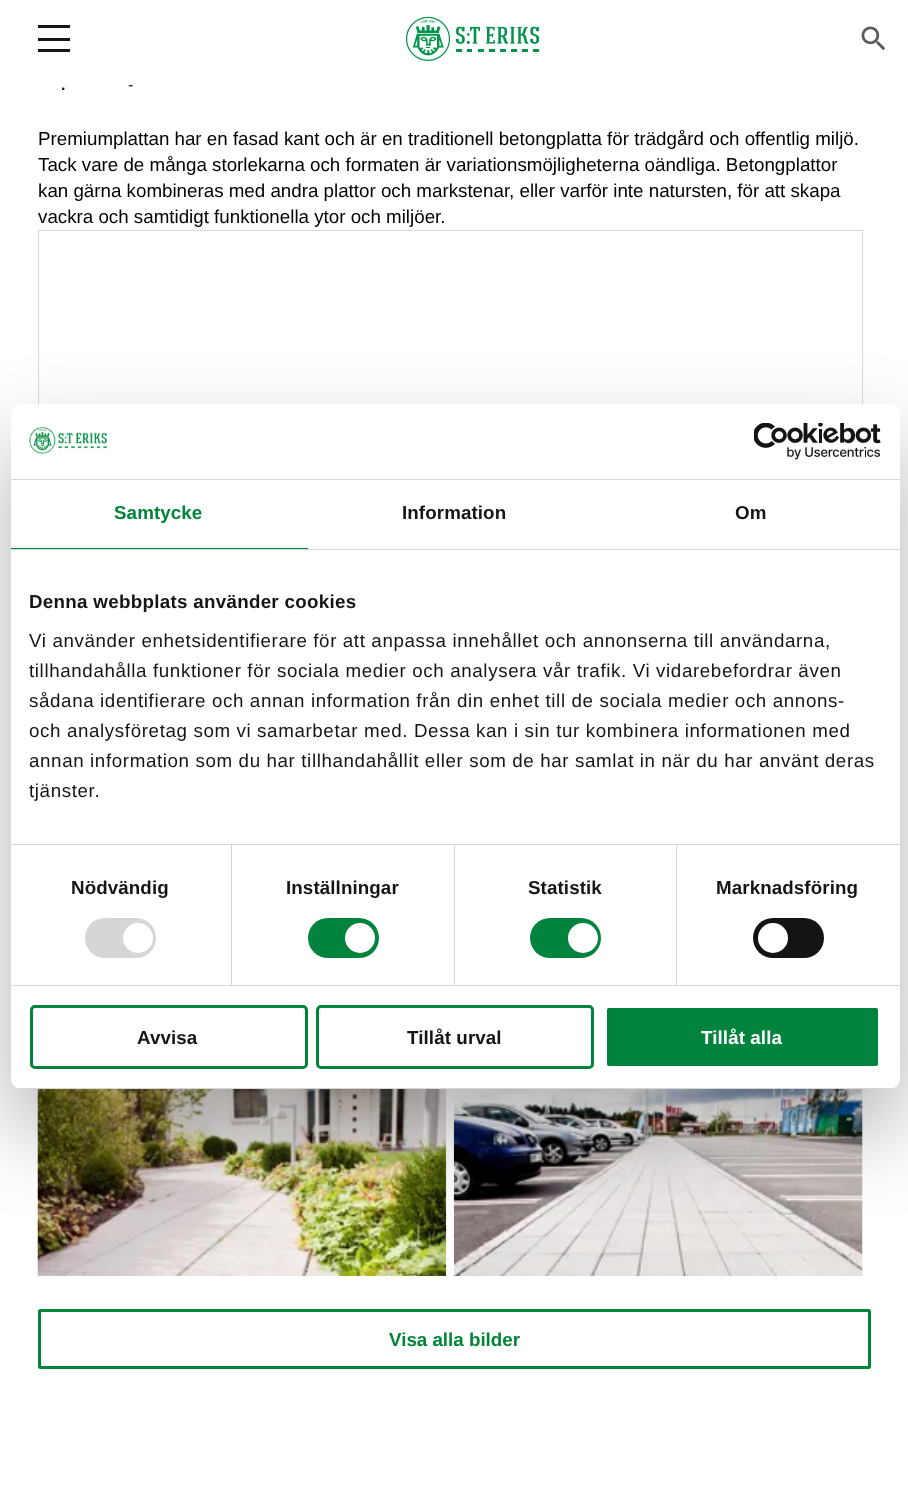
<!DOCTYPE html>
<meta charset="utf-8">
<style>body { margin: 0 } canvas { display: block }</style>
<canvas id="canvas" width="908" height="1491"></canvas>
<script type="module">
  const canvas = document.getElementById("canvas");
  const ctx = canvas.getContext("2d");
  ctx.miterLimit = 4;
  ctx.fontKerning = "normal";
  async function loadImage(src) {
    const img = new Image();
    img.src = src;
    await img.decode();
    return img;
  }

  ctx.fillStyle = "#ffffff";
  ctx.fillRect(0, 0, 908, 1491);
  ctx.fillStyle = "#151515";
  ctx.fillRect(38, 25, 32, 3);
  ctx.fillRect(38, 38, 32, 3);
  ctx.fillRect(38, 49, 32, 3);
  ctx.drawImage(await loadImage("img1.png"), 406, 16, 134, 45);
  ctx.drawImage(await loadImage("img2.png"), 861, 26, 25, 25);
  ctx.font = "16px Liberation Sans";
  ctx.fillText("-", 128, 90);
  ctx.font = "bold 16px Liberation Sans";
  ctx.fillText(".", 61, 90);
  ctx.font = "18.75px Liberation Sans";
  ctx.fillStyle = "#000000";
  ctx.fillText("Premiumplattan har en fasad kant och är en traditionell betongplatta för trädgård och offentlig miljö.", 38, 145);
  ctx.fillText("Tack vare de många storlekarna och formaten är variationsmöjligheterna oändliga. Betongplattor", 38, 171);
  ctx.fillText("kan gärna kombineras med andra plattor och markstenar, eller varför inte natursten, för att skapa", 38, 197);
  ctx.fillText("vackra och samtidigt funktionella ytor och miljöer.", 38, 223);
  ctx.strokeStyle = "#d9d9d9";
  ctx.strokeRect(38.5, 230.5, 824, 824);
  ctx.drawImage(await loadImage("img3.png"), 37, 1089, 410, 187);
  ctx.drawImage(await loadImage("img4.png"), 453, 1089, 410, 187);
  ctx.beginPath();
  ctx.roundRect(39.5, 1310.5, 830, 57, 1);
  ctx.strokeStyle = "#008538";
  ctx.lineWidth = 3;
  ctx.stroke();
  ctx.font = "bold 18.75px Liberation Sans";
  ctx.fillStyle = "#008538";
  ctx.fillText("Visa alla bilder", 389, 1346);
  ctx.fillStyle = "rgba(0, 0, 0, 0.3)";
  ctx.filter = "blur(42.5px)";
  ctx.beginPath();
  ctx.roundRect(11, 444, 889, 685, 10);
  ctx.fill();
  ctx.filter = "none";
  ctx.fillStyle = "#ffffff";
  ctx.beginPath();
  ctx.roundRect(11, 404, 889, 685, 10);
  ctx.fill();
  ctx.fillStyle = "#d6d6d6";
  ctx.fillRect(11, 479, 889, 1);
  ctx.drawImage(await loadImage("img5.png"), 29, 427, 79, 27);
  ctx.drawImage(await loadImage("img6.png"), 754, 423, 127, 37);
  ctx.fillRect(11, 549, 889, 1);
  ctx.fillStyle = "#00833c";
  ctx.fillRect(11, 548, 297, 1);
  ctx.letterSpacing = "0.1px";
  ctx.fillStyle = "#008538";
  ctx.fillText("Samtycke", 114, 519);
  ctx.fillStyle = "#151515";
  ctx.fillText("Information", 402, 519);
  ctx.fillText("Om", 735, 519);
  ctx.fillStyle = "#d6d6d6";
  ctx.fillRect(11, 844, 889, 1);
  ctx.letterSpacing = "0.3px";
  ctx.fillStyle = "#151515";
  ctx.fillText("Denna webbplats använder cookies", 29, 608);
  ctx.letterSpacing = "0.62px";
  ctx.font = "18.75px Liberation Sans";
  ctx.fillText("Vi använder enhetsidentifierare för att anpassa innehållet och annonserna till användarna,", 29, 647);
  ctx.fillText("tillhandahålla funktioner för sociala medier och analysera vår trafik. Vi vidarebefordrar även", 29, 677);
  ctx.fillText("sådana identifierare och annan information från din enhet till de sociala medier och annons-", 29, 707);
  ctx.fillText("och analysföretag som vi samarbetar med. Dessa kan i sin tur kombinera informationen med", 29, 737);
  ctx.fillText("annan information som du har tillhandahållit eller som de har samlat in när du har använt deras", 29, 767);
  ctx.fillText("tjänster.", 29, 797);
  ctx.fillStyle = "#d6d6d6";
  ctx.fillRect(11, 985, 889, 1);
  ctx.fillRect(231, 845, 1, 140);
  ctx.letterSpacing = "0.1px";
  ctx.font = "bold 18.75px Liberation Sans";
  ctx.fillStyle = "#151515";
  ctx.fillText("Nödvändig", 71, 894);
  ctx.fillStyle = "#d6d6d6";
  ctx.beginPath();
  ctx.roundRect(85, 918, 71, 40, 20);
  ctx.fill();
  ctx.fillStyle = "#ffffff";
  ctx.beginPath();
  ctx.arc(138, 938, 15, 0, Math.PI * 2);
  ctx.fill();
  ctx.fillStyle = "#d6d6d6";
  ctx.fillRect(454, 845, 1, 140);
  ctx.fillStyle = "#151515";
  ctx.fillText("Inställningar", 286, 894);
  ctx.fillStyle = "#00833c";
  ctx.beginPath();
  ctx.roundRect(308, 918, 71, 40, 20);
  ctx.fill();
  ctx.fillStyle = "#ffffff";
  ctx.beginPath();
  ctx.arc(360, 938, 15, 0, Math.PI * 2);
  ctx.fill();
  ctx.fillStyle = "#d6d6d6";
  ctx.fillRect(676, 845, 1, 140);
  ctx.fillStyle = "#151515";
  ctx.fillText("Statistik", 528, 894);
  ctx.fillStyle = "#00833c";
  ctx.beginPath();
  ctx.roundRect(530, 918, 71, 40, 20);
  ctx.fill();
  ctx.fillStyle = "#ffffff";
  ctx.beginPath();
  ctx.arc(583, 938, 15, 0, Math.PI * 2);
  ctx.fill();
  ctx.fillStyle = "#151515";
  ctx.fillText("Marknadsföring", 716, 894);
  ctx.fillStyle = "#141414";
  ctx.beginPath();
  ctx.roundRect(753, 918, 71, 40, 20);
  ctx.fill();
  ctx.fillStyle = "#ffffff";
  ctx.beginPath();
  ctx.arc(773, 938, 15, 0, Math.PI * 2);
  ctx.fill();
  ctx.save();
  ctx.beginPath();
  ctx.roundRect(11, 404, 889, 685, 10);
  ctx.clip();
  ctx.fillStyle = "#d6d6d6";
  ctx.fillRect(11, 1088, 889, 1);
  ctx.restore();
  ctx.beginPath();
  ctx.roundRect(31.5, 1006.5, 275, 61, 3.5);
  ctx.strokeStyle = "#00833c";
  ctx.stroke();
  ctx.fillStyle = "#151515";
  ctx.fillText("Avvisa", 137, 1044);
  ctx.beginPath();
  ctx.roundRect(317.5, 1006.5, 275, 61, 3.5);
  ctx.stroke();
  ctx.fillText("Tillåt urval", 407, 1044);
  ctx.fillStyle = "#00833c";
  ctx.beginPath();
  ctx.roundRect(605.5, 1006.5, 274, 61, 3.5);
  ctx.fill();
  ctx.strokeStyle = "#ffffff";
  ctx.stroke();
  ctx.fillStyle = "#ffffff";
  ctx.fillText("Tillåt alla", 701, 1044);
</script>
